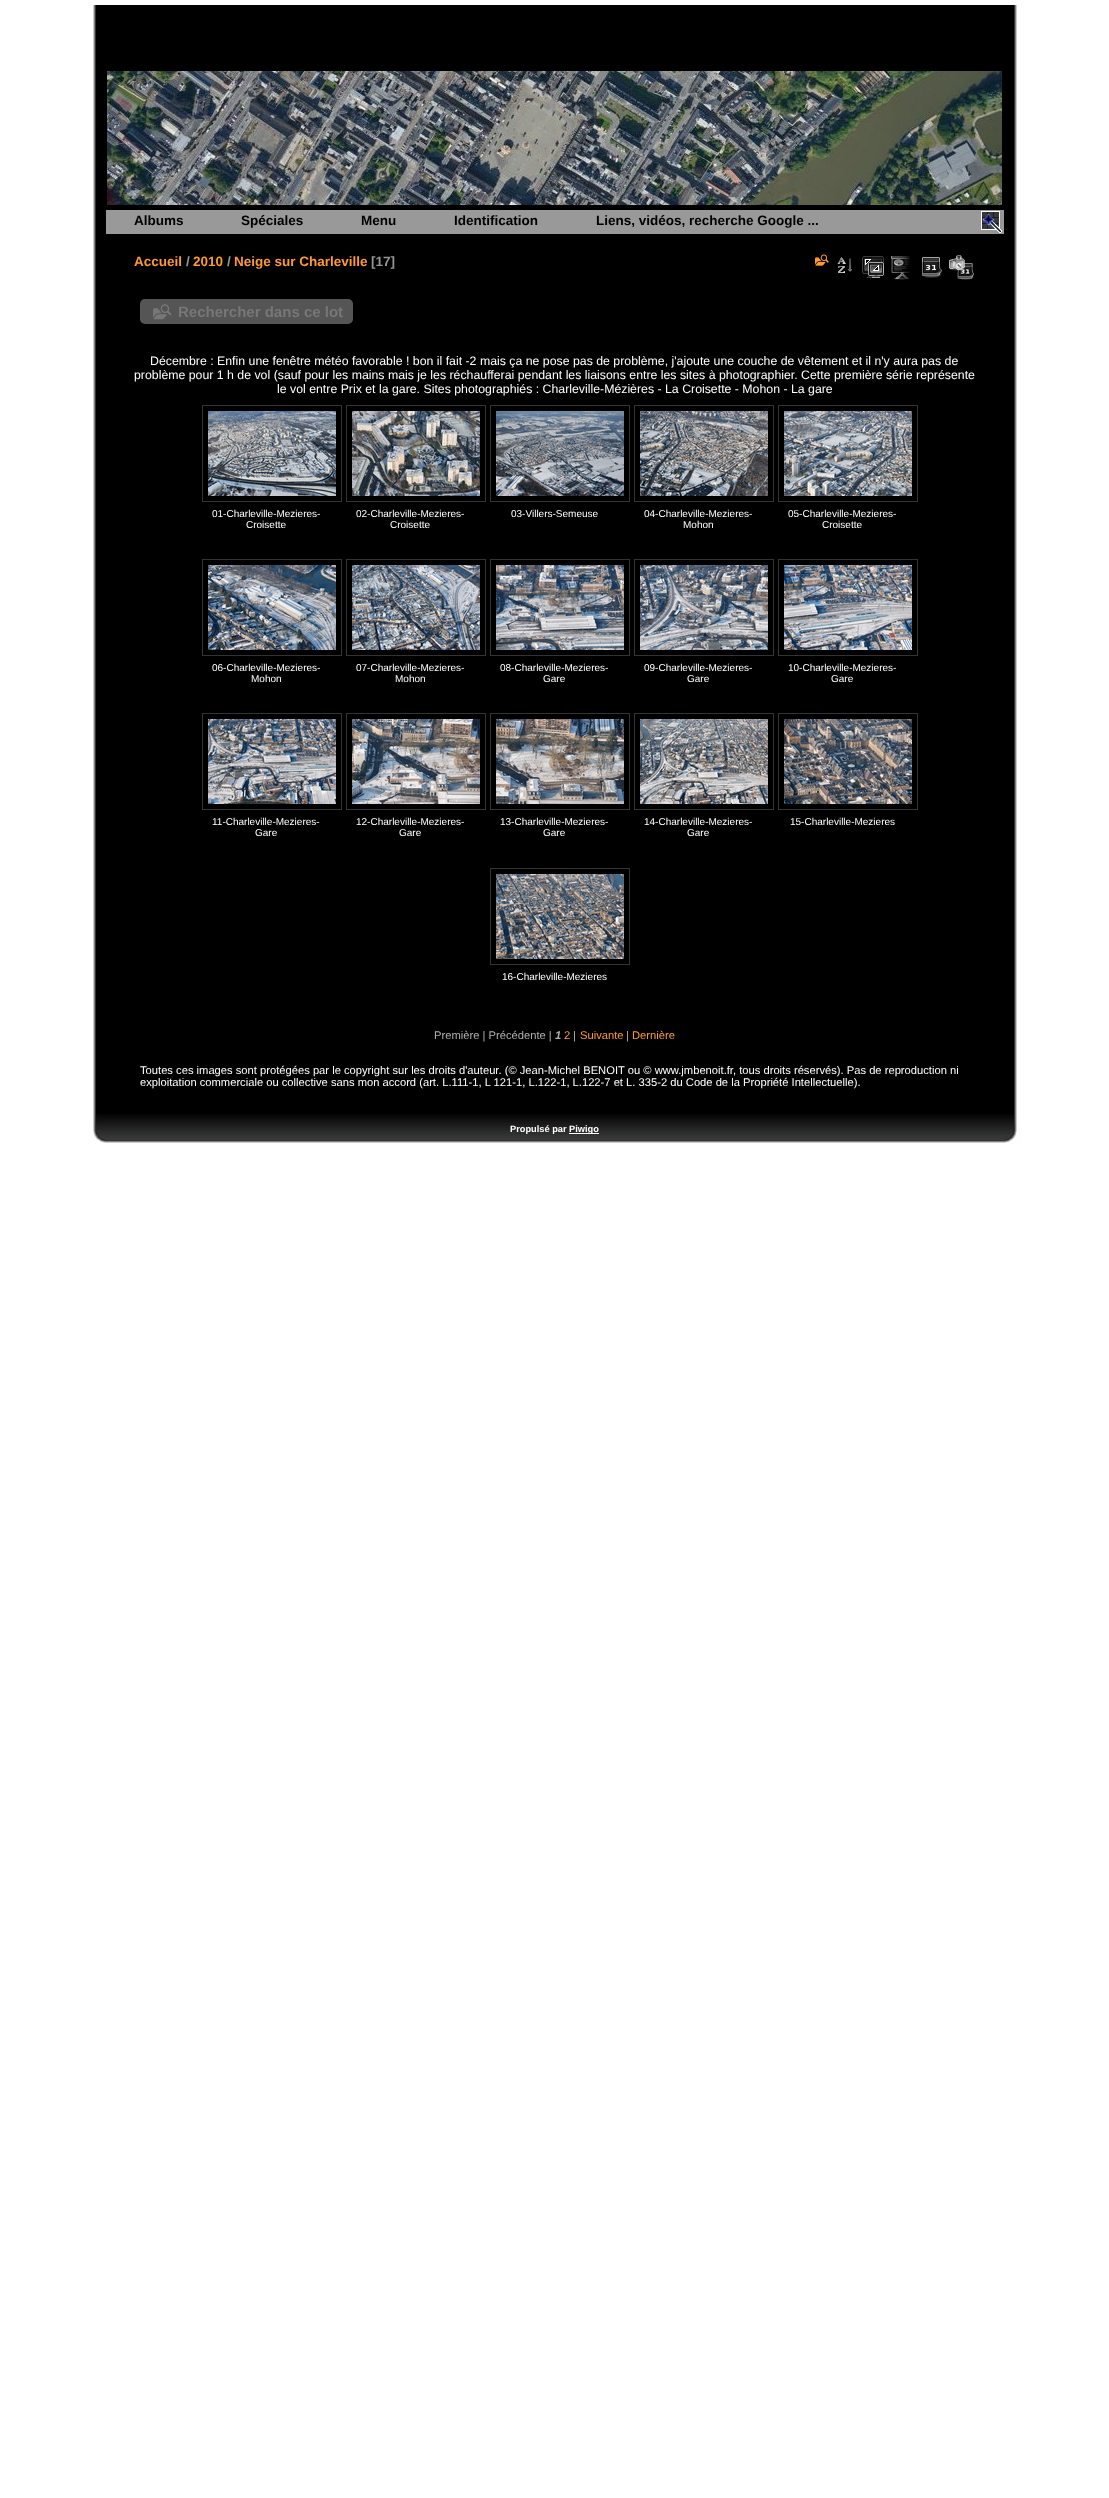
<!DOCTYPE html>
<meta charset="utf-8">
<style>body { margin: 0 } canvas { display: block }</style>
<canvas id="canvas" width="1109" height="2498"></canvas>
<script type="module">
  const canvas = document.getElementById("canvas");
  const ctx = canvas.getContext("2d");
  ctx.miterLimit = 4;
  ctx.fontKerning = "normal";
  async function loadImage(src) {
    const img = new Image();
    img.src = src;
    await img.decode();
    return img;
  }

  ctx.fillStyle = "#ffffff";
  ctx.fillRect(0, 0, 1109, 2498);
  ctx.drawImage(await loadImage("img1.png"), 93, 5, 924, 1109);
  ctx.drawImage(await loadImage("img2.png"), 107, 71, 895, 134);
  ctx.fillStyle = "#999999";
  ctx.fillRect(106, 210, 898, 24);
  ctx.font = "bold 13.5px Liberation Sans";
  ctx.fillStyle = "#000000";
  ctx.fillText("Albums", 134, 225);
  ctx.fillText("Spéciales", 241, 225);
  ctx.fillText("Menu", 361, 225);
  ctx.fillText("Identification", 454, 225);
  ctx.fillText("Liens, vidéos, recherche Google ...", 596, 225);
  ctx.drawImage(await loadImage("img3.png"), 981, 211, 21, 23);
  ctx.fillStyle = "#ff9933";
  ctx.fillText("Accueil", 134, 266);
  ctx.fillStyle = "#969696";
  ctx.fillText("/", 186, 266);
  ctx.fillStyle = "#ff9933";
  ctx.fillText("2010", 193, 266);
  ctx.fillStyle = "#969696";
  ctx.fillText("/", 227, 266);
  ctx.fillStyle = "#ff9933";
  ctx.fillText("Neige sur Charleville", 234, 266);
  ctx.fillStyle = "#969696";
  ctx.fillText("[17]", 371, 266);
  ctx.drawImage(await loadImage("img4.png"), 815, 254, 14, 12);
  ctx.drawImage(await loadImage("img5.png"), 837, 257, 15, 16);
  ctx.drawImage(await loadImage("img6.png"), 862, 256, 22, 22);
  ctx.drawImage(await loadImage("img7.png"), 891, 256, 19, 24);
  ctx.drawImage(await loadImage("img8.png"), 921, 257, 21, 21);
  ctx.drawImage(await loadImage("img9.png"), 949, 255, 25, 25);
  ctx.fillStyle = "#555555";
  ctx.beginPath();
  ctx.roundRect(140, 299, 213, 25, 5);
  ctx.fill();
  ctx.drawImage(await loadImage("img10.png"), 153, 304, 19, 16);
  ctx.font = "bold 15px Liberation Sans";
  ctx.fillStyle = "#777777";
  ctx.fillText("Rechercher dans ce lot", 178, 317);
  ctx.font = "12.32px Liberation Sans";
  ctx.fillStyle = "#ffffff";
  ctx.fillText("Décembre : Enfin une fenêtre météo favorable ! bon il fait -2 mais ça ne pose pas de problème, j'ajoute une couche de vêtement et il n'y aura pas de", 150, 365);
  ctx.fillText("problème pour 1 h de vol (sauf pour les mains mais je les réchaufferai pendant les liaisons entre les sites à photographier. Cette première série représente", 134, 379);
  ctx.fillText("le vol entre Prix et la gare. Sites photographiés : Charleville-Mézières - La Croisette - Mohon - La gare", 277, 393);
  ctx.strokeStyle = "#333333";
  ctx.strokeRect(202.5, 405.5, 139, 96);
  ctx.drawImage(await loadImage("img11.png"), 208, 411, 128, 85);
  ctx.font = "10px Liberation Sans";
  ctx.fillText("01-Charleville-Mezieres-", 212, 517);
  ctx.fillText("Croisette", 246, 528);
  ctx.strokeRect(346.5, 405.5, 139, 96);
  ctx.drawImage(await loadImage("img12.png"), 352, 411, 128, 85);
  ctx.fillText("02-Charleville-Mezieres-", 356, 517);
  ctx.fillText("Croisette", 390, 528);
  ctx.strokeRect(490.5, 405.5, 139, 96);
  ctx.drawImage(await loadImage("img13.png"), 496, 411, 128, 85);
  ctx.fillText("03-Villers-Semeuse", 511, 517);
  ctx.strokeRect(634.5, 405.5, 139, 96);
  ctx.drawImage(await loadImage("img14.png"), 640, 411, 128, 85);
  ctx.fillText("04-Charleville-Mezieres-", 644, 517);
  ctx.fillText("Mohon", 683, 528);
  ctx.strokeRect(778.5, 405.5, 139, 96);
  ctx.drawImage(await loadImage("img15.png"), 784, 411, 128, 85);
  ctx.fillText("05-Charleville-Mezieres-", 788, 517);
  ctx.fillText("Croisette", 822, 528);
  ctx.strokeRect(202.5, 559.5, 139, 96);
  ctx.drawImage(await loadImage("img16.png"), 208, 565, 128, 85);
  ctx.fillText("06-Charleville-Mezieres-", 212, 671);
  ctx.fillText("Mohon", 251, 682);
  ctx.strokeRect(346.5, 559.5, 139, 96);
  ctx.drawImage(await loadImage("img17.png"), 352, 565, 128, 85);
  ctx.fillText("07-Charleville-Mezieres-", 356, 671);
  ctx.fillText("Mohon", 395, 682);
  ctx.strokeRect(490.5, 559.5, 139, 96);
  ctx.drawImage(await loadImage("img18.png"), 496, 565, 128, 85);
  ctx.fillText("08-Charleville-Mezieres-", 500, 671);
  ctx.fillText("Gare", 543, 682);
  ctx.strokeRect(634.5, 559.5, 139, 96);
  ctx.drawImage(await loadImage("img19.png"), 640, 565, 128, 85);
  ctx.fillText("09-Charleville-Mezieres-", 644, 671);
  ctx.fillText("Gare", 687, 682);
  ctx.strokeRect(778.5, 559.5, 139, 96);
  ctx.drawImage(await loadImage("img20.png"), 784, 565, 128, 85);
  ctx.fillText("10-Charleville-Mezieres-", 788, 671);
  ctx.fillText("Gare", 831, 682);
  ctx.strokeRect(202.5, 713.5, 139, 96);
  ctx.drawImage(await loadImage("img21.png"), 208, 719, 128, 85);
  ctx.fillText("11-Charleville-Mezieres-", 212, 825);
  ctx.fillText("Gare", 255, 836);
  ctx.strokeRect(346.5, 713.5, 139, 96);
  ctx.drawImage(await loadImage("img22.png"), 352, 719, 128, 85);
  ctx.fillText("12-Charleville-Mezieres-", 356, 825);
  ctx.fillText("Gare", 399, 836);
  ctx.strokeRect(490.5, 713.5, 139, 96);
  ctx.drawImage(await loadImage("img23.png"), 496, 719, 128, 85);
  ctx.fillText("13-Charleville-Mezieres-", 500, 825);
  ctx.fillText("Gare", 543, 836);
  ctx.strokeRect(634.5, 713.5, 139, 96);
  ctx.drawImage(await loadImage("img24.png"), 640, 719, 128, 85);
  ctx.fillText("14-Charleville-Mezieres-", 644, 825);
  ctx.fillText("Gare", 687, 836);
  ctx.strokeRect(778.5, 713.5, 139, 96);
  ctx.drawImage(await loadImage("img25.png"), 784, 719, 128, 85);
  ctx.fillText("15-Charleville-Mezieres", 790, 825);
  ctx.strokeRect(490.5, 868.5, 139, 96);
  ctx.drawImage(await loadImage("img26.png"), 496, 874, 128, 85);
  ctx.fillText("16-Charleville-Mezieres", 502, 980);
  ctx.font = "11.2px Liberation Sans";
  ctx.fillStyle = "#b0b0b0";
  ctx.fillText("Première | Précédente |", 434, 1039);
  ctx.font = "italic bold 11.2px Liberation Sans";
  ctx.fillText("1", 555, 1039);
  ctx.font = "11.2px Liberation Sans";
  ctx.fillStyle = "#ff9933";
  ctx.fillText("2", 564, 1039);
  ctx.fillStyle = "#b0b0b0";
  ctx.fillText("|", 573, 1039);
  ctx.fillStyle = "#ff9933";
  ctx.fillText("Suivante", 580, 1039);
  ctx.fillStyle = "#b0b0b0";
  ctx.fillText("|", 626, 1039);
  ctx.fillStyle = "#ff9933";
  ctx.fillText("Dernière", 632, 1039);
  ctx.fillStyle = "#ffffff";
  ctx.fillText("Toutes ces images sont protégées par le copyright sur les droits d'auteur. (© Jean-Michel BENOIT ou © www.jmbenoit.fr, tous droits réservés). Pas de reproduction ni", 140, 1074);
  ctx.fillText("exploitation commerciale ou collective sans mon accord (art. L.111-1, L 121-1, L.122-1, L.122-7 et L. 335-2 du Code de la Propriété Intellectuelle).", 140, 1086);
  ctx.drawImage(await loadImage("img27.png"), 93, 1114, 928, 30);
  ctx.font = "bold 9.25px Liberation Sans";
  ctx.fillText("Propulsé par", 510, 1132);
  ctx.fillRect(569, 1133, 30, 1);
  ctx.fillText("Piwigo", 569, 1132);
</script>
